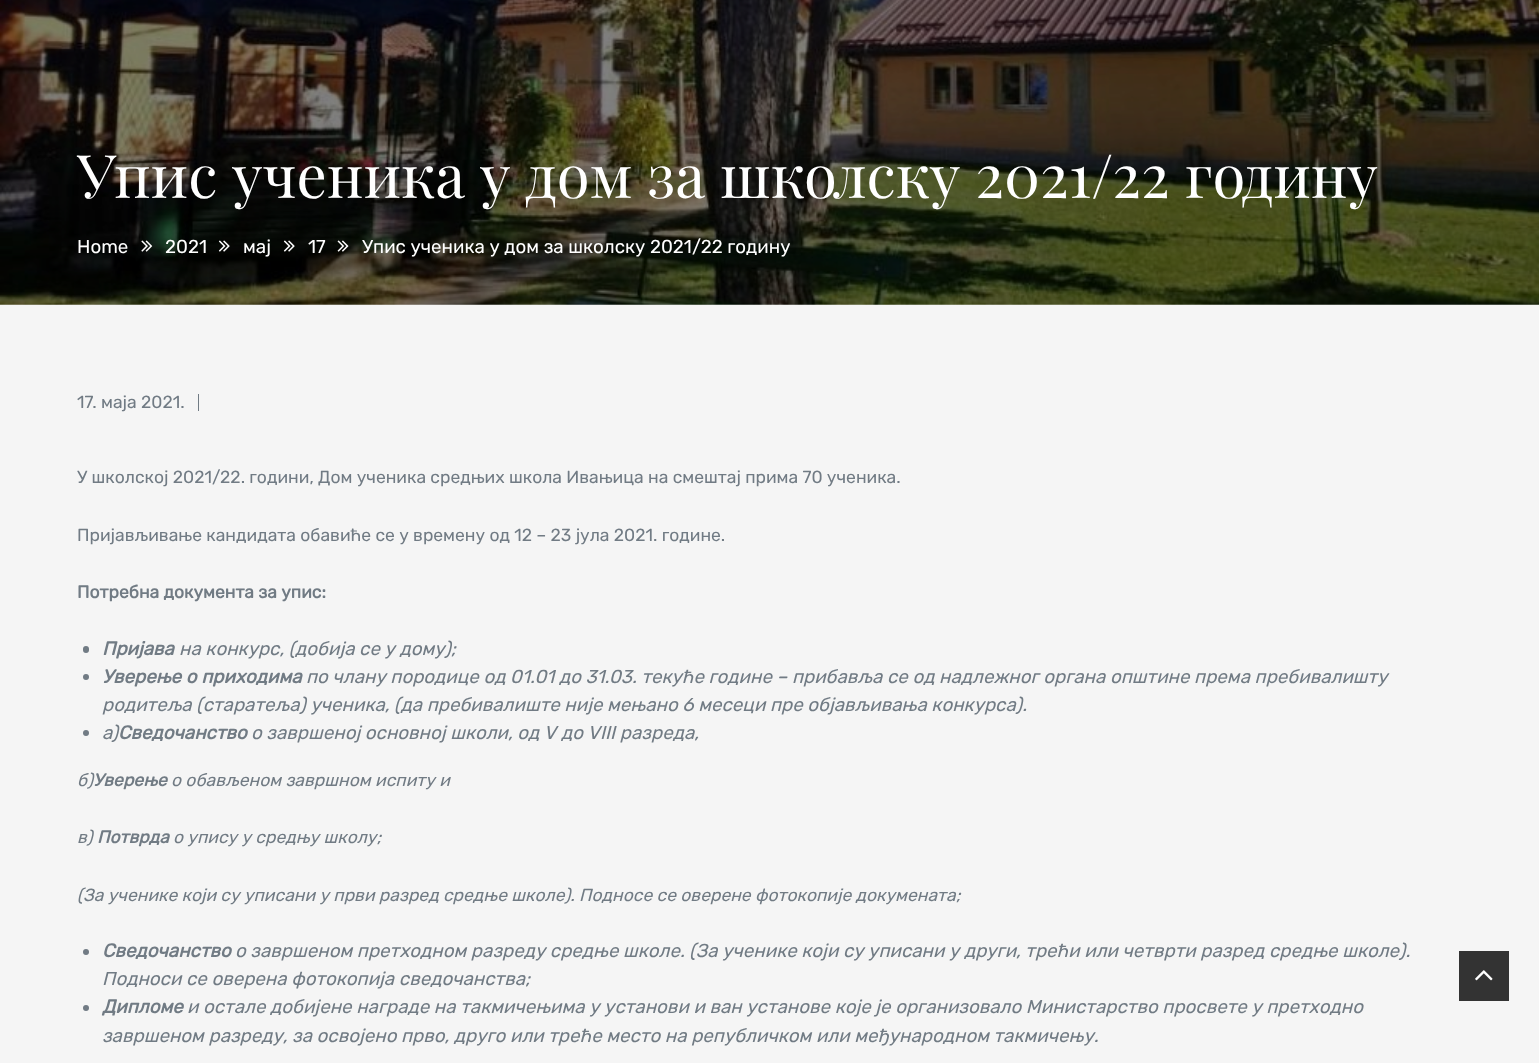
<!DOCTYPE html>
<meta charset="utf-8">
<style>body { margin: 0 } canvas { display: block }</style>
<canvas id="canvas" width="1539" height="1063"></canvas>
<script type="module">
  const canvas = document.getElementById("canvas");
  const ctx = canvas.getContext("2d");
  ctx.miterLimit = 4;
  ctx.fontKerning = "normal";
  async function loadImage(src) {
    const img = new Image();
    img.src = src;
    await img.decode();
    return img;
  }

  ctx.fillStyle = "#f5f5f5";
  ctx.fillRect(0, 0, 1539, 1063);
  ctx.drawImage(await loadImage("img1.png"), 0, 0, 1539, 305);
  ctx.font = "60px Playfair Display";
  ctx.fillStyle = "#ffffff";
  ctx.fillText("Упис ученика у дом за школску 2021/22 годину", 77, 198);
  ctx.font = "300 18.75px Rubik";
  ctx.fillText("Home", 77, 253);
  ctx.drawImage(await loadImage("img2.png"), 141, 240, 12, 12);
  ctx.fillText("2021", 165, 253);
  ctx.drawImage(await loadImage("img3.png"), 218, 240, 12, 12);
  ctx.fillText("мај", 243, 253);
  ctx.drawImage(await loadImage("img4.png"), 283, 240, 12, 12);
  ctx.fillText("17", 308, 253);
  ctx.drawImage(await loadImage("img5.png"), 337, 240, 12, 12);
  ctx.fillText("Упис ученика у дом за школску 2021/22 годину", 362, 253);
  ctx.font = "300 17.5px Rubik";
  ctx.fillStyle = "#717b84";
  ctx.fillText("17. маја 2021.", 77, 408);
  ctx.fillRect(198, 394, 1, 17);
  ctx.fillText("У школској 2021/22. години, Дом ученика средњих школа Ивањица на смештај прима 70 ученика.", 77, 483);
  ctx.fillText("Пријављивање кандидата обавиће се у времену од 12 – 23 јула 2021. године.", 77, 541);
  ctx.font = "bold 17.5px Rubik";
  ctx.fillText("Потребна документа за упис:", 77, 598);
  ctx.beginPath();
  ctx.roundRect(83, 646, 6, 7, 3);
  ctx.fill();
  ctx.font = "italic bold 18.75px Rubik";
  ctx.fillText("Пријава", 102, 655);
  ctx.font = "italic 300 18.75px Rubik";
  ctx.fillText("на конкурс, (добија се у дому);", 179, 655);
  ctx.beginPath();
  ctx.arc(86, 677, 3, 0, Math.PI * 2);
  ctx.fill();
  ctx.font = "italic bold 18.75px Rubik";
  ctx.fillText("Уверење о приходима", 102, 683);
  ctx.font = "italic 300 18.75px Rubik";
  ctx.fillText("по члану породице од 01.01 до 31.03. текуће године – прибавља се од надлежног органа општине према пребивалишту", 306, 683);
  ctx.fillText("родитеља (старатеља) ученика, (да пребивалиште није мењано 6 месеци пре објављивања конкурса).", 102, 711);
  ctx.beginPath();
  ctx.arc(86, 733, 3, 0, Math.PI * 2);
  ctx.fill();
  ctx.fillText("a)", 102, 739);
  ctx.font = "italic bold 18.75px Rubik";
  ctx.fillText("Сведочанство", 118, 739);
  ctx.font = "italic 300 18.75px Rubik";
  ctx.fillText("о завршеној основној школи, од V", 251, 739);
  ctx.fillText("до VIII разреда,", 561, 739);
  ctx.font = "italic 300 17.5px Rubik";
  ctx.fillText("б)", 77, 786);
  ctx.font = "italic bold 17.5px Rubik";
  ctx.fillText("Уверење", 93, 786);
  ctx.font = "italic 300 17.5px Rubik";
  ctx.fillText("о обављеном завршном испиту и", 171, 786);
  ctx.fillText("в)", 77, 843);
  ctx.font = "italic bold 17.5px Rubik";
  ctx.fillText("Потврда", 97, 843);
  ctx.font = "italic 300 17.5px Rubik";
  ctx.fillText("о упису у средњу школу;", 173, 843);
  ctx.fillText("(За ученике који су уписани у први разред средње школе). Подносе се оверене фотокопије докумената;", 77, 901);
  ctx.beginPath();
  ctx.arc(86, 952, 3, 0, Math.PI * 2);
  ctx.fill();
  ctx.font = "italic bold 18.75px Rubik";
  ctx.fillText("Сведочанство", 102, 957);
  ctx.font = "italic 300 18.75px Rubik";
  ctx.fillText("о завршеном претходном разреду средње школе. (За ученике који су уписани у други, трећи или четврти разред средње школе).", 235, 957);
  ctx.fillText("Подноси се оверена фотокопија сведочанства;", 102, 985);
  ctx.beginPath();
  ctx.arc(86, 1008, 3, 0, Math.PI * 2);
  ctx.fill();
  ctx.font = "italic bold 18.75px Rubik";
  ctx.fillText("Дипломе", 102, 1013);
  ctx.font = "italic 300 18.75px Rubik";
  ctx.fillText("и остале добијене награде на такмичењима у установи и ван установе које је организовало Министарство просвете у претходно", 187, 1013);
  ctx.fillText("завршеном разреду, за освојено прво, друго или треће место на републичком или међународном такмичењу.", 102, 1042);
  ctx.fillStyle = "#333333";
  ctx.fillRect(1459, 951, 50, 50);
  ctx.drawImage(await loadImage("img6.png"), 1475, 970, 18, 11);
</script>
